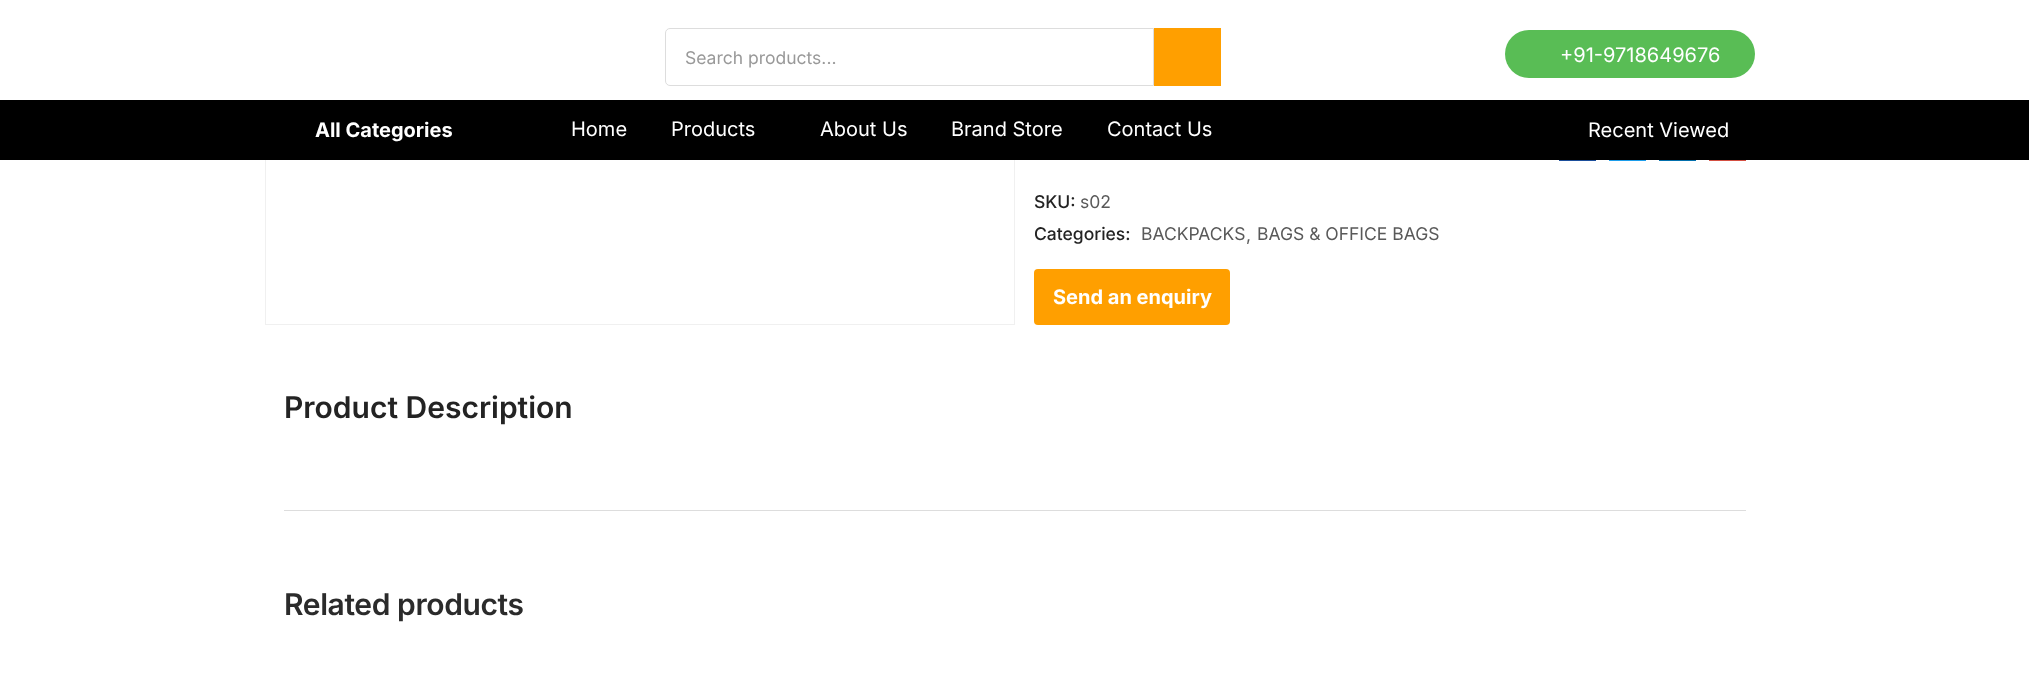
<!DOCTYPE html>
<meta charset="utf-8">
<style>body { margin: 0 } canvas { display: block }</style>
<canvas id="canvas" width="2029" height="679"></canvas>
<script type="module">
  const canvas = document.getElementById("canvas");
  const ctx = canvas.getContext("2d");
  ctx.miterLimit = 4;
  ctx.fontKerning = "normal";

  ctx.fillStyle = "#ffffff";
  ctx.fillRect(0, 0, 2029, 679);
  ctx.strokeStyle = "#f0f0f0";
  ctx.strokeRect(265.5, 66.5, 749, 258);
  ctx.fillRect(265, 66, 750, 34);
  ctx.beginPath();
  ctx.roundRect(665.5, 28.5, 488, 57, [4.5, 0, 0, 4.5]);
  ctx.strokeStyle = "#dddddd";
  ctx.stroke();
  ctx.font = "17.5px Inter";
  ctx.fillStyle = "#999999";
  ctx.fillText("Search products...", 685, 64);
  ctx.fillStyle = "#ff9f00";
  ctx.fillRect(1154, 28, 67, 58);
  ctx.fillStyle = "#59bd55";
  ctx.beginPath();
  ctx.roundRect(1505, 30, 250, 48, 24);
  ctx.fill();
  ctx.font = "20px Inter";
  ctx.fillStyle = "#ffffff";
  ctx.fillText("+91-9718649676", 1560, 62);
  ctx.fillStyle = "#000000";
  ctx.fillRect(0, 100, 2029, 60);
  ctx.font = "bold 20px Inter";
  ctx.fillStyle = "#ffffff";
  ctx.fillText("All Categories", 315, 137);
  ctx.font = "20px Inter";
  ctx.fillText("Home", 571, 136);
  ctx.fillText("Products", 671, 136);
  ctx.fillText("About Us", 820, 136);
  ctx.fillText("Brand Store", 951, 136);
  ctx.fillText("Contact Us", 1107, 136);
  ctx.fillText("Recent Viewed", 1588, 137);
  ctx.fillStyle = "#1b4e9b";
  ctx.fillRect(1559, 160, 37, 1);
  ctx.fillStyle = "#1c9deb";
  ctx.fillRect(1609, 160, 37, 1);
  ctx.fillStyle = "#026fac";
  ctx.fillRect(1659, 160, 37, 1);
  ctx.fillStyle = "#d44f42";
  ctx.fillRect(1709, 160, 37, 1);
  ctx.font = "500 17.5px Inter";
  ctx.fillStyle = "#232323";
  ctx.fillText("SKU:", 1034, 208);
  ctx.font = "17.5px Inter";
  ctx.fillStyle = "#595959";
  ctx.fillText("s02", 1080, 208);
  ctx.font = "500 17.5px Inter";
  ctx.fillStyle = "#232323";
  ctx.fillText("Categories:", 1034, 240);
  ctx.font = "17.5px Inter";
  ctx.fillStyle = "#595959";
  ctx.fillText("BACKPACKS", 1141, 240);
  ctx.fillText(",", 1246, 241);
  ctx.fillText("BAGS & OFFICE BAGS", 1257, 240);
  ctx.fillStyle = "#ff9f00";
  ctx.beginPath();
  ctx.roundRect(1034, 269, 196, 56, 4);
  ctx.fill();
  ctx.font = "bold 20px Inter";
  ctx.fillStyle = "#ffffff";
  ctx.fillText("Send an enquiry", 1053, 304);
  ctx.font = "600 30px Inter";
  ctx.fillStyle = "#232323";
  ctx.fillText("Product Description", 284, 418);
  ctx.fillStyle = "#dddddd";
  ctx.fillRect(284, 510, 1462, 1);
  ctx.letterSpacing = "-0.4px";
  ctx.fillStyle = "#2b2b2b";
  ctx.fillText("Related products", 284, 615);
</script>
